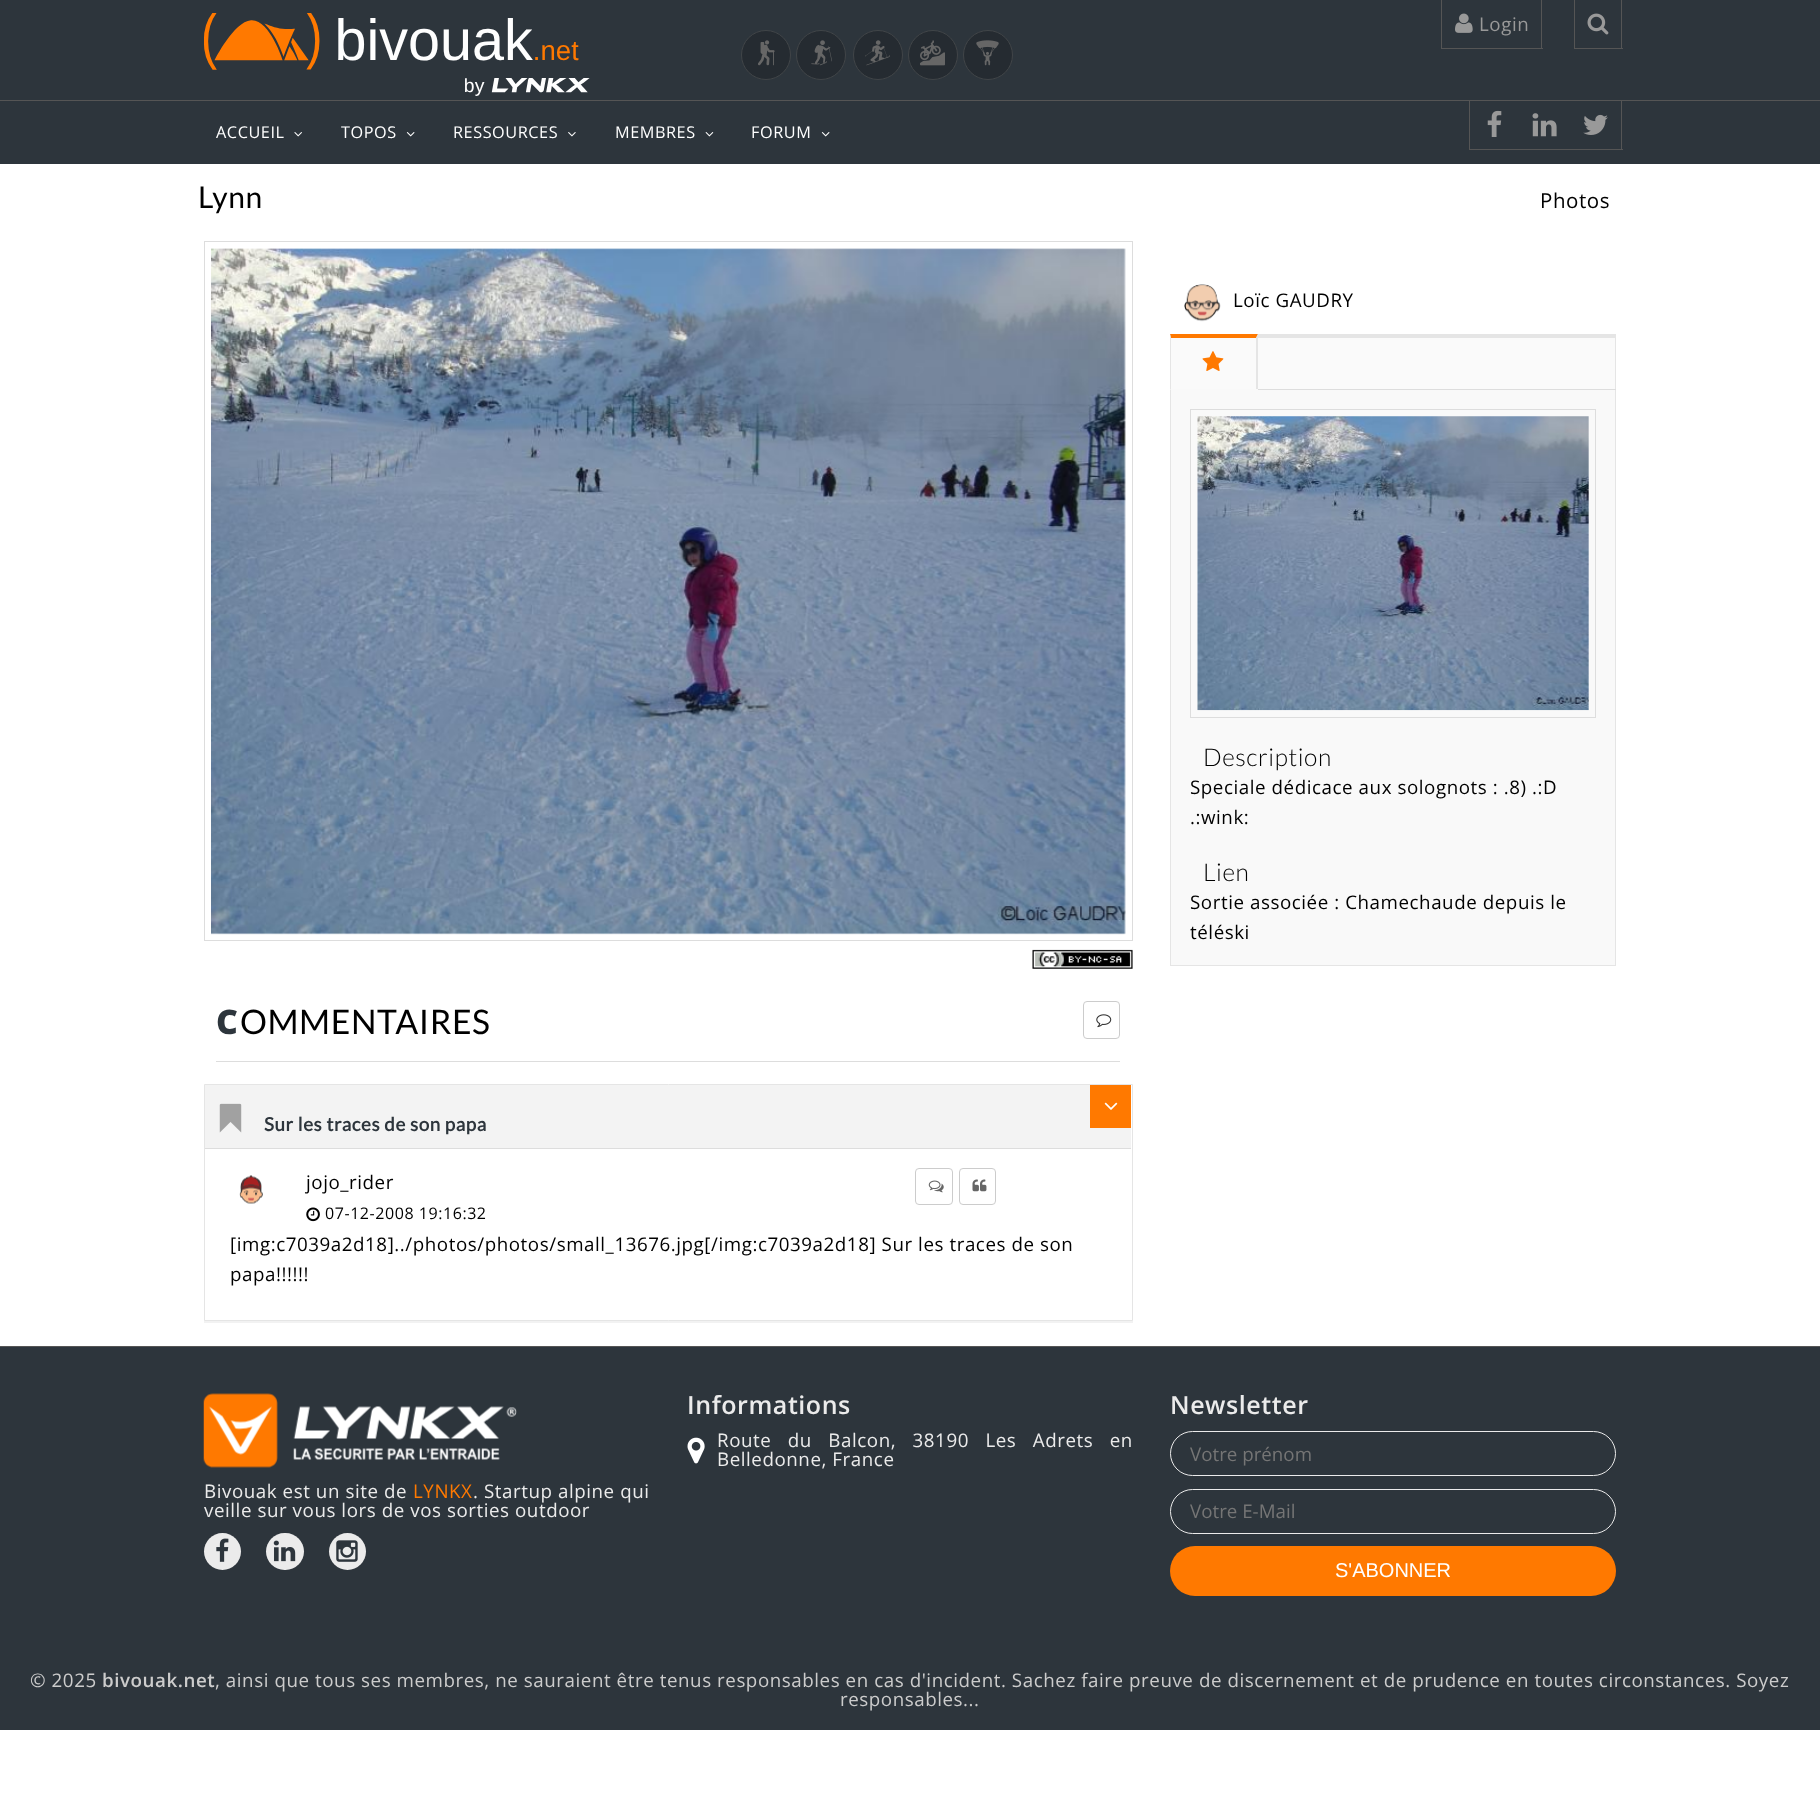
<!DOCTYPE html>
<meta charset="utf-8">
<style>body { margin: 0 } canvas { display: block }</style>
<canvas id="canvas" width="1820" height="1796"></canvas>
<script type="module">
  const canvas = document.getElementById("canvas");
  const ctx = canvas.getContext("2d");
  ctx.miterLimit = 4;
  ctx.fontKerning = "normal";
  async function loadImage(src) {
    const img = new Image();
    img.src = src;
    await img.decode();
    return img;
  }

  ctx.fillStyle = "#ffffff";
  ctx.fillRect(0, 0, 1820, 1796);
  ctx.fillStyle = "#2d353c";
  ctx.fillRect(0, 0, 1820, 100);
  ctx.drawImage(await loadImage("img1.png"), 204, 13, 375, 57);
  ctx.drawImage(await loadImage("img2.png"), 465, 78, 125, 18);
  ctx.fillStyle = "#252b31";
  ctx.beginPath();
  ctx.arc(766, 55, 24.5, 0, Math.PI * 2);
  ctx.fill();
  ctx.strokeStyle = "#414548";
  ctx.stroke();
  ctx.drawImage(await loadImage("img3.png"), 758, 40, 17, 26);
  ctx.beginPath();
  ctx.arc(821, 55, 24.5, 0, Math.PI * 2);
  ctx.fill();
  ctx.stroke();
  ctx.drawImage(await loadImage("img4.png"), 811, 40, 21, 26);
  ctx.beginPath();
  ctx.arc(878, 55, 24.5, 0, Math.PI * 2);
  ctx.fill();
  ctx.stroke();
  ctx.drawImage(await loadImage("img5.png"), 865, 40, 25, 26);
  ctx.beginPath();
  ctx.arc(933, 55, 24.5, 0, Math.PI * 2);
  ctx.fill();
  ctx.stroke();
  ctx.drawImage(await loadImage("img6.png"), 920, 40, 25, 26);
  ctx.beginPath();
  ctx.arc(988, 55, 24.5, 0, Math.PI * 2);
  ctx.fill();
  ctx.stroke();
  ctx.drawImage(await loadImage("img7.png"), 976, 40, 23, 26);
  ctx.fillStyle = "#555555";
  ctx.fillRect(1541, 0, 1, 49);
  ctx.fillRect(1441, 48, 102, 1);
  ctx.fillRect(1441, 0, 1, 49);
  ctx.drawImage(await loadImage("img8.png"), 1455, 13, 18, 20);
  ctx.letterSpacing = "0.56px";
  ctx.font = "18.75px Open Sans";
  ctx.fillStyle = "#999999";
  ctx.fillText("Login", 1479, 31);
  ctx.fillStyle = "#555555";
  ctx.fillRect(1621, 0, 1, 49);
  ctx.fillRect(1574, 48, 49, 1);
  ctx.fillRect(1574, 0, 1, 49);
  ctx.drawImage(await loadImage("img9.png"), 1587, 13, 22, 22);
  ctx.fillStyle = "#2d353c";
  ctx.fillRect(0, 101, 1820, 63);
  ctx.fillStyle = "#555555";
  ctx.fillRect(0, 100, 1820, 1);
  ctx.font = "16.25px Open Sans";
  ctx.fillStyle = "#ffffff";
  ctx.fillText("ACCUEIL", 216, 138);
  ctx.drawImage(await loadImage("img10.png"), 294, 132, 8, 5);
  ctx.fillText("TOPOS", 341, 138);
  ctx.drawImage(await loadImage("img11.png"), 406, 132, 9, 5);
  ctx.fillText("RESSOURCES", 453, 138);
  ctx.drawImage(await loadImage("img12.png"), 568, 132, 8, 5);
  ctx.fillText("MEMBRES", 615, 138);
  ctx.drawImage(await loadImage("img13.png"), 705, 132, 9, 5);
  ctx.fillText("FORUM", 751, 138);
  ctx.drawImage(await loadImage("img11.png"), 821, 132, 9, 5);
  ctx.fillStyle = "#555555";
  ctx.fillRect(1621, 101, 1, 49);
  ctx.fillRect(1469, 149, 154, 1);
  ctx.fillRect(1469, 101, 1, 49);
  ctx.drawImage(await loadImage("img14.png"), 1487, 110, 15, 27);
  ctx.drawImage(await loadImage("img15.png"), 1532, 113, 25, 24);
  ctx.drawImage(await loadImage("img16.png"), 1583, 114, 25, 21);
  ctx.font = "30px Lato";
  ctx.fillStyle = "#000000";
  ctx.fillText("Lynn", 198, 208);
  ctx.font = "20.5px Open Sans";
  ctx.fillText("Photos", 1540, 208);
  ctx.drawImage(await loadImage("img17.png"), 1184, 284, 37, 38);
  ctx.font = "18.75px Open Sans";
  ctx.fillText("Loïc GAUDRY", 1233, 307);
  ctx.fillStyle = "#fafafa";
  ctx.fillRect(1171, 338, 444, 51);
  ctx.fillStyle = "#e5e5e5";
  ctx.fillRect(1170, 334, 446, 4);
  ctx.fillRect(1615, 334, 1, 632);
  ctx.fillStyle = "#dddddd";
  ctx.fillRect(1258, 389, 358, 1);
  ctx.fillStyle = "#ff7900";
  ctx.beginPath();
  ctx.moveTo(1170, 334);
  ctx.lineTo(1258, 334);
  ctx.lineTo(1256, 338);
  ctx.lineTo(1171, 338);
  ctx.closePath();
  ctx.fill();
  ctx.fillStyle = "#e5e5e5";
  ctx.beginPath();
  ctx.moveTo(1258, 334);
  ctx.lineTo(1258, 390);
  ctx.lineTo(1256, 389);
  ctx.lineTo(1256, 338);
  ctx.closePath();
  ctx.fill();
  ctx.fillStyle = "#f9f9f9";
  ctx.fillRect(1170, 389, 88, 1);
  ctx.fillStyle = "#e5e5e5";
  ctx.beginPath();
  ctx.moveTo(1170, 390);
  ctx.lineTo(1170, 334);
  ctx.lineTo(1171, 338);
  ctx.lineTo(1171, 389);
  ctx.closePath();
  ctx.fill();
  ctx.drawImage(await loadImage("img18.png"), 1202, 351, 22, 20);
  ctx.fillStyle = "#f9f9f9";
  ctx.fillRect(1171, 390, 444, 575);
  ctx.fillStyle = "#e5e5e5";
  ctx.fillRect(1170, 965, 446, 1);
  ctx.fillRect(1170, 390, 1, 576);
  ctx.strokeStyle = "#dddddd";
  ctx.strokeRect(1190.5, 409.5, 405, 308);
  ctx.drawImage(await loadImage("img19.png"), 1197, 416, 392, 295);
  ctx.font = "300 24.5px Lato";
  ctx.fillStyle = "#000000";
  ctx.fillText("Description", 1203, 766);
  ctx.font = "18.75px Open Sans";
  ctx.fillText("Speciale dédicace aux solognots : .8) .:D", 1190, 794);
  ctx.fillText(".:wink:", 1190, 824);
  ctx.font = "300 24.5px Lato";
  ctx.fillText("Lien", 1203, 881);
  ctx.font = "18.75px Open Sans";
  ctx.fillText("Sortie associée : Chamechaude depuis le", 1190, 909);
  ctx.fillText("téléski", 1190, 939);
  ctx.strokeRect(204.5, 241.5, 928, 699);
  ctx.drawImage(await loadImage("img20.png"), 211, 248, 915, 687);
  ctx.drawImage(await loadImage("img21.png"), 1032, 949, 101, 20);
  ctx.fillStyle = "#dddddd";
  ctx.fillRect(216, 1061, 904, 1);
  ctx.font = "900 33.75px Noto Sans";
  ctx.fillStyle = "#2d353c";
  ctx.fillText("C", 216, 1034);
  ctx.font = "33.75px Lato";
  ctx.fillStyle = "#000000";
  ctx.fillText("OMMENTAIRES", 240, 1034);
  ctx.beginPath();
  ctx.roundRect(1083.5, 1001.5, 36, 37, 3.5);
  ctx.strokeStyle = "#cccccc";
  ctx.stroke();
  ctx.drawImage(await loadImage("img22.png"), 1096, 1014, 16, 14);
  ctx.fillStyle = "rgba(0, 0, 0, 0.05)";
  ctx.filter = "blur(0.5px)";
  ctx.beginPath();
  ctx.rect(204, 1085, 929, 238);
  ctx.fill();
  ctx.filter = "none";
  ctx.fillStyle = "#ffffff";
  ctx.beginPath();
  ctx.rect(204.5, 1084.5, 928, 236);
  ctx.fill();
  ctx.strokeStyle = "#e5e5e5";
  ctx.stroke();
  ctx.fillStyle = "#f3f3f3";
  ctx.fillRect(205, 1085, 926, 63);
  ctx.drawImage(await loadImage("img23.png"), 219, 1103, 23, 30);
  ctx.font = "bold 18.75px Lato";
  ctx.fillStyle = "#2d353c";
  ctx.fillText("Sur les traces de son papa", 264, 1131);
  ctx.fillStyle = "#ff7900";
  ctx.fillRect(1090, 1085, 41, 43);
  ctx.drawImage(await loadImage("img24.png"), 1104, 1102, 14, 8);
  ctx.fillStyle = "#dddddd";
  ctx.fillRect(205, 1148, 926, 1);
  ctx.drawImage(await loadImage("img25.png"), 239, 1175, 24, 29);
  ctx.font = "18.75px Open Sans";
  ctx.fillStyle = "#000000";
  ctx.fillText("jojo_rider", 306, 1189);
  ctx.drawImage(await loadImage("img26.png"), 306, 1207, 14, 15);
  ctx.font = "16px Open Sans";
  ctx.fillText("07-12-2008 19:16:32", 325, 1219);
  ctx.beginPath();
  ctx.roundRect(915.5, 1168.5, 37, 36, 3.5);
  ctx.strokeStyle = "#cccccc";
  ctx.stroke();
  ctx.drawImage(await loadImage("img27.png"), 928, 1180, 16, 13);
  ctx.beginPath();
  ctx.roundRect(959.5, 1168.5, 36, 36, 3.5);
  ctx.stroke();
  ctx.drawImage(await loadImage("img28.png"), 972, 1179, 15, 13);
  ctx.font = "18.75px Open Sans";
  ctx.fillText("[img:c7039a2d18]../photos/photos/small_13676.jpg[/img:c7039a2d18] Sur les traces de son", 230, 1251);
  ctx.fillText("papa!!!!!!", 230, 1281);
  ctx.fillStyle = "#2d353c";
  ctx.fillRect(0, 1347, 1820, 383);
  ctx.fillStyle = "#555555";
  ctx.fillRect(0, 1346, 1820, 1);
  ctx.drawImage(await loadImage("img29.png"), 203, 1393, 314, 75);
  ctx.fillStyle = "#ebebeb";
  ctx.fillText("Bivouak est un site de", 204, 1498);
  ctx.fillStyle = "#ff7900";
  ctx.fillText("LYNKX", 413, 1498);
  ctx.fillStyle = "#ebebeb";
  ctx.fillText(". Startup alpine qui", 473, 1498);
  ctx.fillText("veille sur vous lors de vos sorties outdoor", 204, 1517);
  ctx.beginPath();
  ctx.arc(222.5, 1551.5, 18.5, 0, Math.PI * 2);
  ctx.fill();
  ctx.drawImage(await loadImage("img30.png"), 216, 1538, 13, 24);
  ctx.beginPath();
  ctx.roundRect(266, 1533, 38, 37, 18.5);
  ctx.fill();
  ctx.drawImage(await loadImage("img31.png"), 273, 1540, 23, 22);
  ctx.beginPath();
  ctx.arc(347.5, 1551.5, 18.5, 0, Math.PI * 2);
  ctx.fill();
  ctx.drawImage(await loadImage("img32.png"), 336, 1540, 22, 22);
  ctx.font = "600 25px Open Sans";
  ctx.fillText("Informations", 687, 1414);
  ctx.drawImage(await loadImage("img33.png"), 687, 1437, 18, 27);
  ctx.wordSpacing = "11px";
  ctx.font = "18.75px Open Sans";
  ctx.fillText("Route du Balcon, 38190 Les Adrets en", 717, 1447);
  ctx.wordSpacing = "0px";
  ctx.fillText("Belledonne, France", 717, 1466);
  ctx.font = "600 25px Open Sans";
  ctx.fillText("Newsletter", 1170, 1414);
  ctx.beginPath();
  ctx.roundRect(1170.5, 1431.5, 445, 44, 22);
  ctx.strokeStyle = "#ebebeb";
  ctx.stroke();
  ctx.letterSpacing = "0px";
  ctx.font = "18.75px Open Sans";
  ctx.fillStyle = "#757575";
  ctx.fillText("Votre prénom", 1190, 1461);
  ctx.beginPath();
  ctx.roundRect(1170.5, 1489.5, 445, 44, 22);
  ctx.stroke();
  ctx.fillText("Votre E-Mail", 1190, 1518);
  ctx.fillStyle = "#ff7900";
  ctx.beginPath();
  ctx.roundRect(1170, 1546, 446, 50, 25);
  ctx.fill();
  ctx.font = "20px Liberation Sans";
  ctx.fillStyle = "#ffffff";
  ctx.fillText("S'ABONNER", 1335, 1577);
  ctx.letterSpacing = "0.56px";
  ctx.font = "18.75px Open Sans";
  ctx.fillStyle = "#cccccc";
  ctx.fillText("© 2025", 30, 1687);
  ctx.font = "600 18.75px Open Sans";
  ctx.fillText("bivouak.net", 102, 1687);
  ctx.font = "18.75px Open Sans";
  ctx.fillText(", ainsi que tous ses membres, ne sauraient être tenus responsables en cas d'incident. Sachez faire preuve de discernement et de prudence en toutes circonstances. Soyez", 215, 1687);
  ctx.fillText("responsables...", 840, 1706);
</script>
